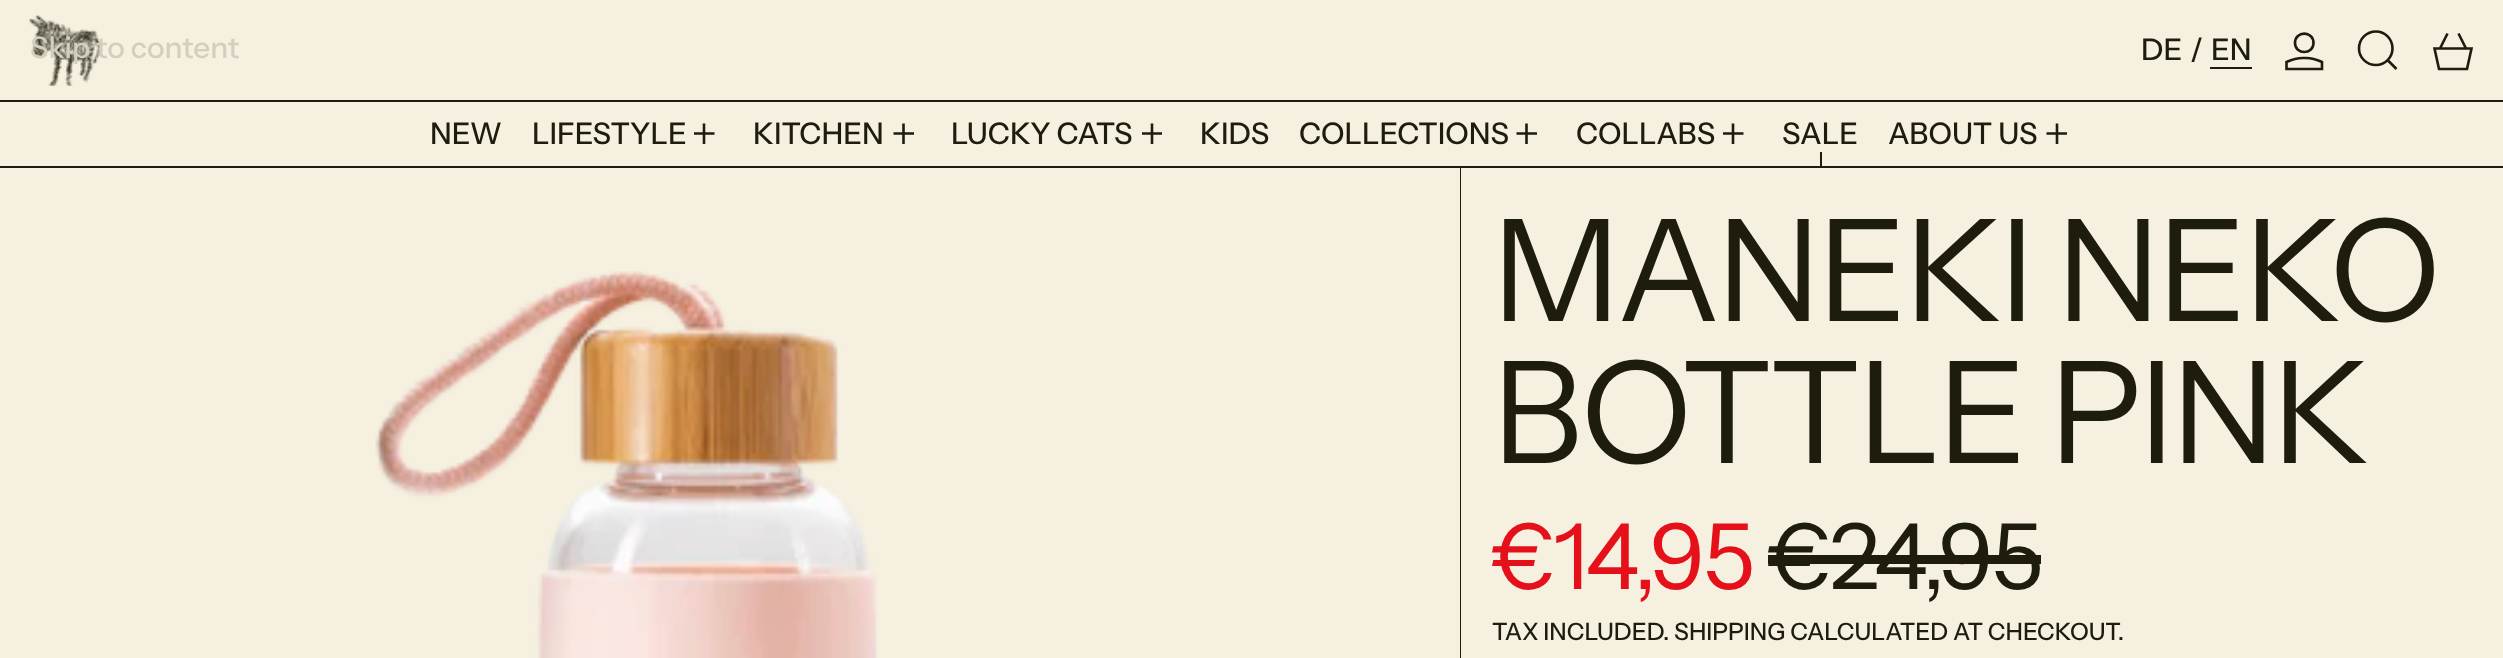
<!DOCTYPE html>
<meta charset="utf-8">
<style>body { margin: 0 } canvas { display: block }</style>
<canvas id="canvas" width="2503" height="658"></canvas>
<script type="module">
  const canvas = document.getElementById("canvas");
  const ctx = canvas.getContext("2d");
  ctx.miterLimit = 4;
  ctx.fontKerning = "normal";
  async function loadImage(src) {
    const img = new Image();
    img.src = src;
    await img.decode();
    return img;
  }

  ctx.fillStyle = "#f5f0e0";
  ctx.fillRect(0, 0, 2503, 658);
  ctx.drawImage(await loadImage("img1.png"), 29, 15, 71, 71);
  ctx.font = "500 29.75px Instrument Sans";
  ctx.fillStyle = "#d3cfbf";
  ctx.fillText("Skip to content", 30, 58);
  ctx.fillStyle = "#1e1c0c";
  ctx.fillRect(0, 166, 2503, 2);
  ctx.fillText("DE", 2141, 60);
  ctx.fillText("/", 2190, 60);
  ctx.fillText("EN", 2211, 60);
  ctx.fillRect(2210, 67, 42, 2);
  ctx.beginPath();
  ctx.moveTo(2304.5, 58);
  ctx.bezierCurveTo(2298, 57.5, 2292, 59.5, 2286.5, 62);
  ctx.lineTo(2286.5, 69);
  ctx.lineTo(2322, 69);
  ctx.lineTo(2322, 62);
  ctx.bezierCurveTo(2316.5, 59.5, 2310.5, 57.5, 2304.5, 58);
  ctx.closePath();
  ctx.moveTo(2295, 43);
  ctx.bezierCurveTo(2295, 55, 2313.5, 55, 2313.5, 43);
  ctx.bezierCurveTo(2313.5, 30.5, 2295, 30.5, 2295, 43);
  ctx.closePath();
  ctx.strokeStyle = "#1e1c0c";
  ctx.lineWidth = 2.6;
  ctx.stroke();
  ctx.beginPath();
  ctx.moveTo(2359, 48.5);
  ctx.bezierCurveTo(2359, 57.5, 2366.5, 65, 2376, 65);
  ctx.bezierCurveTo(2385, 65, 2392.5, 57.5, 2392.5, 48.5);
  ctx.bezierCurveTo(2392.5, 39, 2385, 31.5, 2376, 31.5);
  ctx.bezierCurveTo(2366.5, 31.5, 2359, 39, 2359, 48.5);
  ctx.closePath();
  ctx.moveTo(2388, 60.5);
  ctx.lineTo(2396.5, 69);
  ctx.stroke();
  ctx.beginPath();
  ctx.moveTo(2439, 69);
  ctx.lineTo(2434.5, 48.5);
  ctx.lineTo(2471.5, 48.5);
  ctx.lineTo(2467, 69);
  ctx.closePath();
  ctx.moveTo(2440, 48.5);
  ctx.lineTo(2447.5, 33.5);
  ctx.moveTo(2466, 48.5);
  ctx.lineTo(2458.5, 33.5);
  ctx.stroke();
  ctx.fillRect(0, 100, 2503, 2);
  ctx.fillText("NEW", 430, 144);
  ctx.fillText("LIFESTYLE", 532, 144);
  ctx.beginPath();
  ctx.moveTo(704, 123.5);
  ctx.lineTo(704, 144);
  ctx.moveTo(694, 133.5);
  ctx.lineTo(714.5, 133.5);
  ctx.stroke();
  ctx.fillText("KITCHEN", 753, 144);
  ctx.beginPath();
  ctx.moveTo(903.5, 123.5);
  ctx.lineTo(903.5, 144);
  ctx.moveTo(893.5, 133.5);
  ctx.lineTo(914, 133.5);
  ctx.stroke();
  ctx.fillText("LUCKY CATS", 951, 144);
  ctx.save();
  ctx.beginPath();
  ctx.rect(1141, 123, 21, 22);
  ctx.clip();
  ctx.beginPath();
  ctx.moveTo(1152, 123.5);
  ctx.lineTo(1152, 144);
  ctx.moveTo(1142, 133.5);
  ctx.lineTo(1162.5, 133.5);
  ctx.stroke();
  ctx.restore();
  ctx.fillText("KIDS", 1200, 144);
  ctx.fillText("COLLECTIONS", 1299, 144);
  ctx.beginPath();
  ctx.moveTo(1526.5, 123.5);
  ctx.lineTo(1526.5, 144);
  ctx.moveTo(1516.5, 133.5);
  ctx.lineTo(1537, 133.5);
  ctx.stroke();
  ctx.fillText("COLLABS", 1576, 144);
  ctx.beginPath();
  ctx.moveTo(1733, 123.5);
  ctx.lineTo(1733, 144);
  ctx.moveTo(1723, 133.5);
  ctx.lineTo(1743.5, 133.5);
  ctx.stroke();
  ctx.fillText("SALE", 1782, 144);
  ctx.fillRect(1820, 152, 2, 14);
  ctx.fillText("ABOUT US", 1888, 144);
  ctx.beginPath();
  ctx.moveTo(2057, 123.5);
  ctx.lineTo(2057, 144);
  ctx.moveTo(2046.5, 133.5);
  ctx.lineTo(2067, 133.5);
  ctx.stroke();
  ctx.fillRect(1460, 168, 1, 490);
  ctx.drawImage(await loadImage("img2.png"), 375, 271, 502, 387);
  ctx.letterSpacing = "-3.5px";
  ctx.font = "141.75px Instrument Sans";
  ctx.fillText("MANEKI NEKO", 1492, 321);
  ctx.fillText("BOTTLE PINK", 1492, 463);
  ctx.letterSpacing = "-2.25px";
  ctx.font = "91px Instrument Sans";
  ctx.fillStyle = "#e5101a";
  ctx.fillText("€14,95", 1492, 589);
  ctx.fillStyle = "#1e1c0c";
  ctx.fillText("€24,95", 1768, 589);
  ctx.fillRect(1768, 555, 273, 9);
  ctx.letterSpacing = "0px";
  ctx.font = "500 23.8px Instrument Sans";
  ctx.fillText("TAX INCLUDED. SHIPPING CALCULATED AT CHECKOUT.", 1492, 640);
</script>
